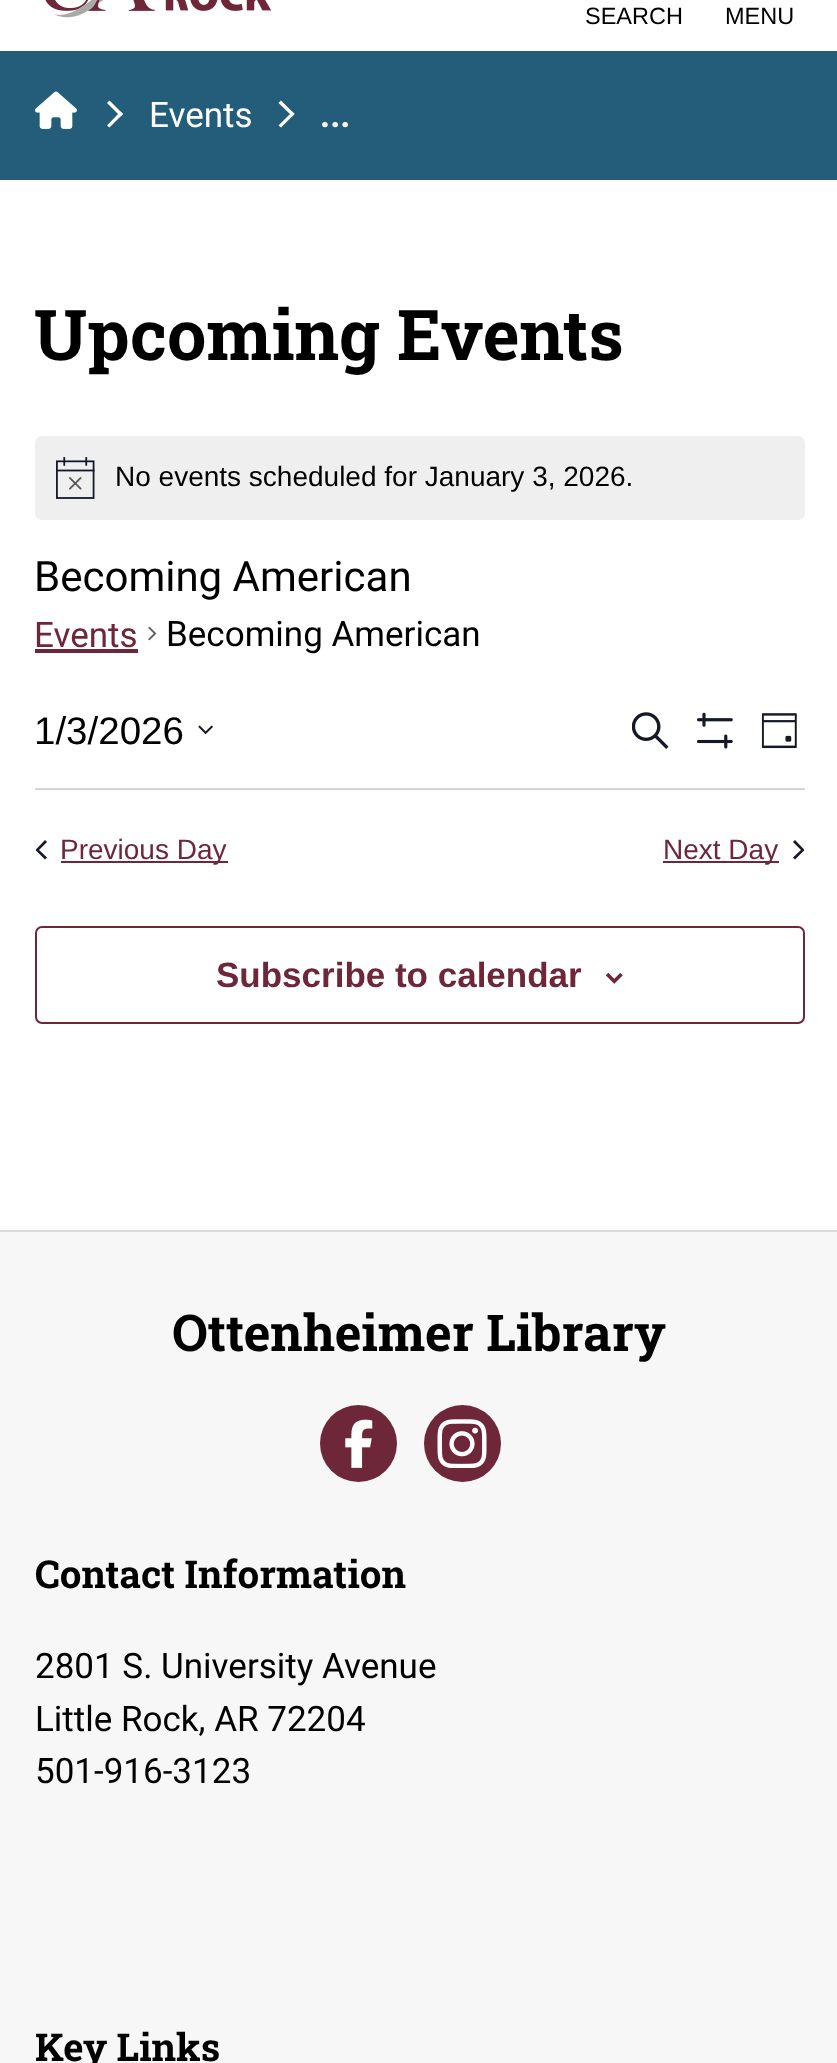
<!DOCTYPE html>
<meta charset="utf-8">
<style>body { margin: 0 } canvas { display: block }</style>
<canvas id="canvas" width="837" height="2063"></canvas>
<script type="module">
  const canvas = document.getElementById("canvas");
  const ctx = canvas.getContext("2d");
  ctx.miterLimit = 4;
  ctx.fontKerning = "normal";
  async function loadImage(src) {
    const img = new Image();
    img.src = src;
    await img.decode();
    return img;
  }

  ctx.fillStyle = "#ffffff";
  ctx.fillRect(0, 0, 837, 2063);
  ctx.drawImage(await loadImage("img1.png"), 45, 0, 226, 18);
  ctx.font = "23.5px Liberation Sans";
  ctx.fillStyle = "#000000";
  ctx.fillText("SEARCH", 585, 24);
  ctx.fillText("MENU", 725, 24);
  ctx.fillStyle = "#245d7a";
  ctx.fillRect(0, 51, 837, 129);
  ctx.drawImage(await loadImage("img2.png"), 35, 91, 42, 38);
  ctx.fillStyle = "#ffffff";
  ctx.beginPath();
  ctx.moveTo(107, 103);
  ctx.lineTo(109.5, 100.5);
  ctx.lineTo(123, 114);
  ctx.lineTo(120.5, 116.5);
  ctx.closePath();
  ctx.fill();
  ctx.beginPath();
  ctx.moveTo(107, 125.5);
  ctx.lineTo(120.5, 111.5);
  ctx.lineTo(123, 114);
  ctx.lineTo(109.5, 127.5);
  ctx.closePath();
  ctx.fill();
  ctx.font = "35px Roboto";
  ctx.fillText("Events", 149, 127);
  ctx.beginPath();
  ctx.moveTo(278.5, 103);
  ctx.lineTo(281, 100.5);
  ctx.lineTo(294.5, 114);
  ctx.lineTo(292.5, 116.5);
  ctx.closePath();
  ctx.fill();
  ctx.beginPath();
  ctx.moveTo(278.5, 125.5);
  ctx.lineTo(292.5, 111.5);
  ctx.lineTo(294.5, 114);
  ctx.lineTo(281, 127.5);
  ctx.closePath();
  ctx.fill();
  ctx.font = "bold 35px Roboto";
  ctx.fillText("...", 320, 127);
  ctx.font = "bold 70px Roboto Slab";
  ctx.fillStyle = "#000000";
  ctx.fillText("Upcoming Events", 34, 360);
  ctx.fillStyle = "#efeff0";
  ctx.beginPath();
  ctx.roundRect(35, 436, 770, 84, 7);
  ctx.fill();
  ctx.drawImage(await loadImage("img3.png"), 56, 457, 39, 42);
  ctx.font = "28px Liberation Sans";
  ctx.fillStyle = "#000000";
  ctx.fillText("No events scheduled for January 3, 2026.", 115, 486);
  ctx.font = "42px Roboto";
  ctx.fillText("Becoming American", 34, 591);
  ctx.font = "35px Roboto";
  ctx.fillStyle = "#6e2639";
  ctx.fillText("Events", 34, 647);
  ctx.fillRect(35, 649, 103, 4);
  ctx.drawImage(await loadImage("img4.png"), 148, 627, 9, 14);
  ctx.fillStyle = "#000000";
  ctx.fillText("Becoming American", 166, 646);
  ctx.font = "38.5px Liberation Sans";
  ctx.fillText("1/3/2026", 34, 744);
  ctx.drawImage(await loadImage("img5.png"), 198, 725, 15, 10);
  ctx.drawImage(await loadImage("img6.png"), 632, 712, 37, 37);
  ctx.drawImage(await loadImage("img7.png"), 697, 712, 36, 37);
  ctx.drawImage(await loadImage("img8.png"), 761, 713, 36, 36);
  ctx.fillStyle = "#d5d5d5";
  ctx.fillRect(35, 788, 770, 2);
  ctx.fillStyle = "#141827";
  ctx.beginPath();
  ctx.moveTo(47, 857.5);
  ctx.lineTo(45, 859.5);
  ctx.lineTo(35.5, 850);
  ctx.lineTo(45, 840);
  ctx.lineTo(47, 842);
  ctx.lineTo(39, 850);
  ctx.closePath();
  ctx.fill();
  ctx.fillStyle = "#6e2639";
  ctx.fillRect(61, 861, 167, 2);
  ctx.font = "28px Liberation Sans";
  ctx.fillText("Previous Day", 60, 859);
  ctx.fillRect(663, 861, 116, 2);
  ctx.fillText("Next Day", 663, 859);
  ctx.fillStyle = "#141827";
  ctx.beginPath();
  ctx.moveTo(793, 842);
  ctx.lineTo(795, 840);
  ctx.lineTo(804.5, 850);
  ctx.lineTo(795, 859.5);
  ctx.lineTo(793, 857.5);
  ctx.lineTo(801, 850);
  ctx.closePath();
  ctx.fill();
  ctx.beginPath();
  ctx.roundRect(36, 927, 768, 96, 6);
  ctx.strokeStyle = "#6e2639";
  ctx.lineWidth = 2;
  ctx.stroke();
  ctx.font = "bold 35px Liberation Sans";
  ctx.fillStyle = "#6e2639";
  ctx.fillText("Subscribe to calendar", 216, 987);
  ctx.drawImage(await loadImage("img9.png"), 606, 973, 17, 11);
  ctx.fillStyle = "#f7f7f7";
  ctx.fillRect(0, 1232, 837, 831);
  ctx.fillStyle = "#dadbdb";
  ctx.fillRect(0, 1230, 837, 2);
  ctx.font = "bold 50.75px Roboto Slab";
  ctx.fillStyle = "#000000";
  ctx.fillText("Ottenheimer Library", 172, 1351);
  ctx.fillStyle = "#6e2639";
  ctx.beginPath();
  ctx.arc(358.5, 1443.5, 38.5, 0, Math.PI * 2);
  ctx.fill();
  ctx.drawImage(await loadImage("img10.png"), 345, 1419, 28, 49);
  ctx.beginPath();
  ctx.arc(462.5, 1443.5, 38.5, 0, Math.PI * 2);
  ctx.fill();
  ctx.drawImage(await loadImage("img11.png"), 437, 1419, 50, 49);
  ctx.font = "bold 38.5px Roboto Slab";
  ctx.fillStyle = "#000000";
  ctx.fillText("Contact Information", 35, 1588);
  ctx.font = "35px Roboto";
  ctx.fillText("2801 S. University Avenue", 35, 1678);
  ctx.fillText("Little Rock, AR 72204", 35, 1731);
  ctx.fillText("501-916-3123", 35, 1783);
  ctx.font = "bold 38.5px Roboto Slab";
  ctx.fillText("Key Links", 35, 2061);
</script>
